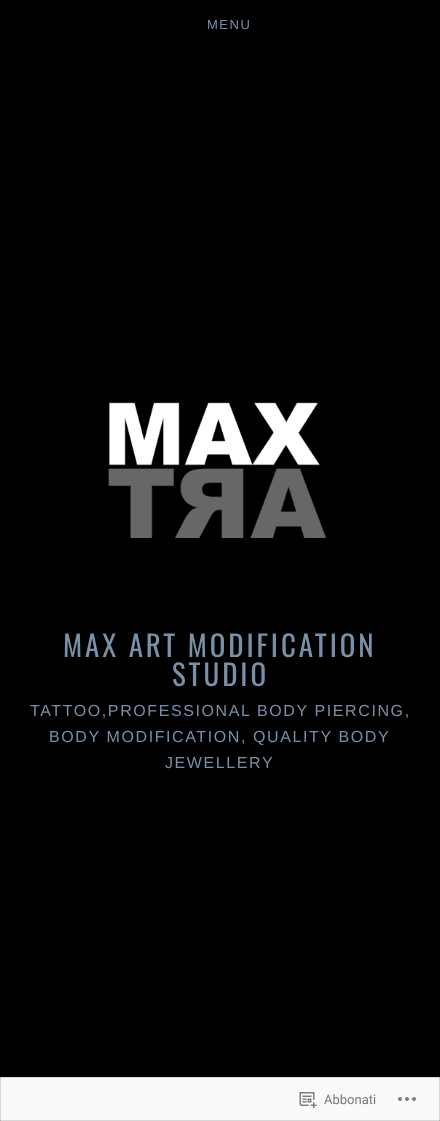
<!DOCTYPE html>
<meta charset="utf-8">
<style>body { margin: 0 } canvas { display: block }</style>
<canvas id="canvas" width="440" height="1121"></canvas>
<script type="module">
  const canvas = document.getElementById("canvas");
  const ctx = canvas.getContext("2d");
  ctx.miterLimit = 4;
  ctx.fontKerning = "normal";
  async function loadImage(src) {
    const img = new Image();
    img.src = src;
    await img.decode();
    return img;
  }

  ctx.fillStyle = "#000000";
  ctx.fillRect(0, 0, 440, 1121);
  ctx.letterSpacing = "1.5px";
  ctx.font = "13px Arimo";
  ctx.fillStyle = "#7890a8";
  ctx.fillText("MENU", 207, 29);
  ctx.drawImage(await loadImage("img1.png"), 108, 402, 218, 137);
  ctx.letterSpacing = "2.9px";
  ctx.font = "29px Oswald";
  ctx.fillText("MAX ART MODIFICATION", 63, 657);
  ctx.fillText("STUDIO", 172, 686);
  ctx.letterSpacing = "1.6px";
  ctx.font = "16px Arimo";
  ctx.fillText("TATTOO,PROFESSIONAL BODY PIERCING,", 30, 716);
  ctx.fillText("BODY MODIFICATION, QUALITY BODY", 49, 742);
  ctx.fillText("JEWELLERY", 165, 768);
  ctx.fillStyle = "#fafafa";
  ctx.beginPath();
  ctx.rect(0.5, 1077.5, 439, 43);
  ctx.fill();
  ctx.strokeStyle = "#d8d8da";
  ctx.stroke();
  ctx.drawImage(await loadImage("img2.png"), 299, 1092, 18, 17);
  ctx.letterSpacing = "0px";
  ctx.font = "13px Roboto";
  ctx.fillStyle = "#767a7f";
  ctx.fillText("Abbonati", 324, 1104);
  ctx.drawImage(await loadImage("img3.png"), 398, 1097, 18, 4);
</script>
